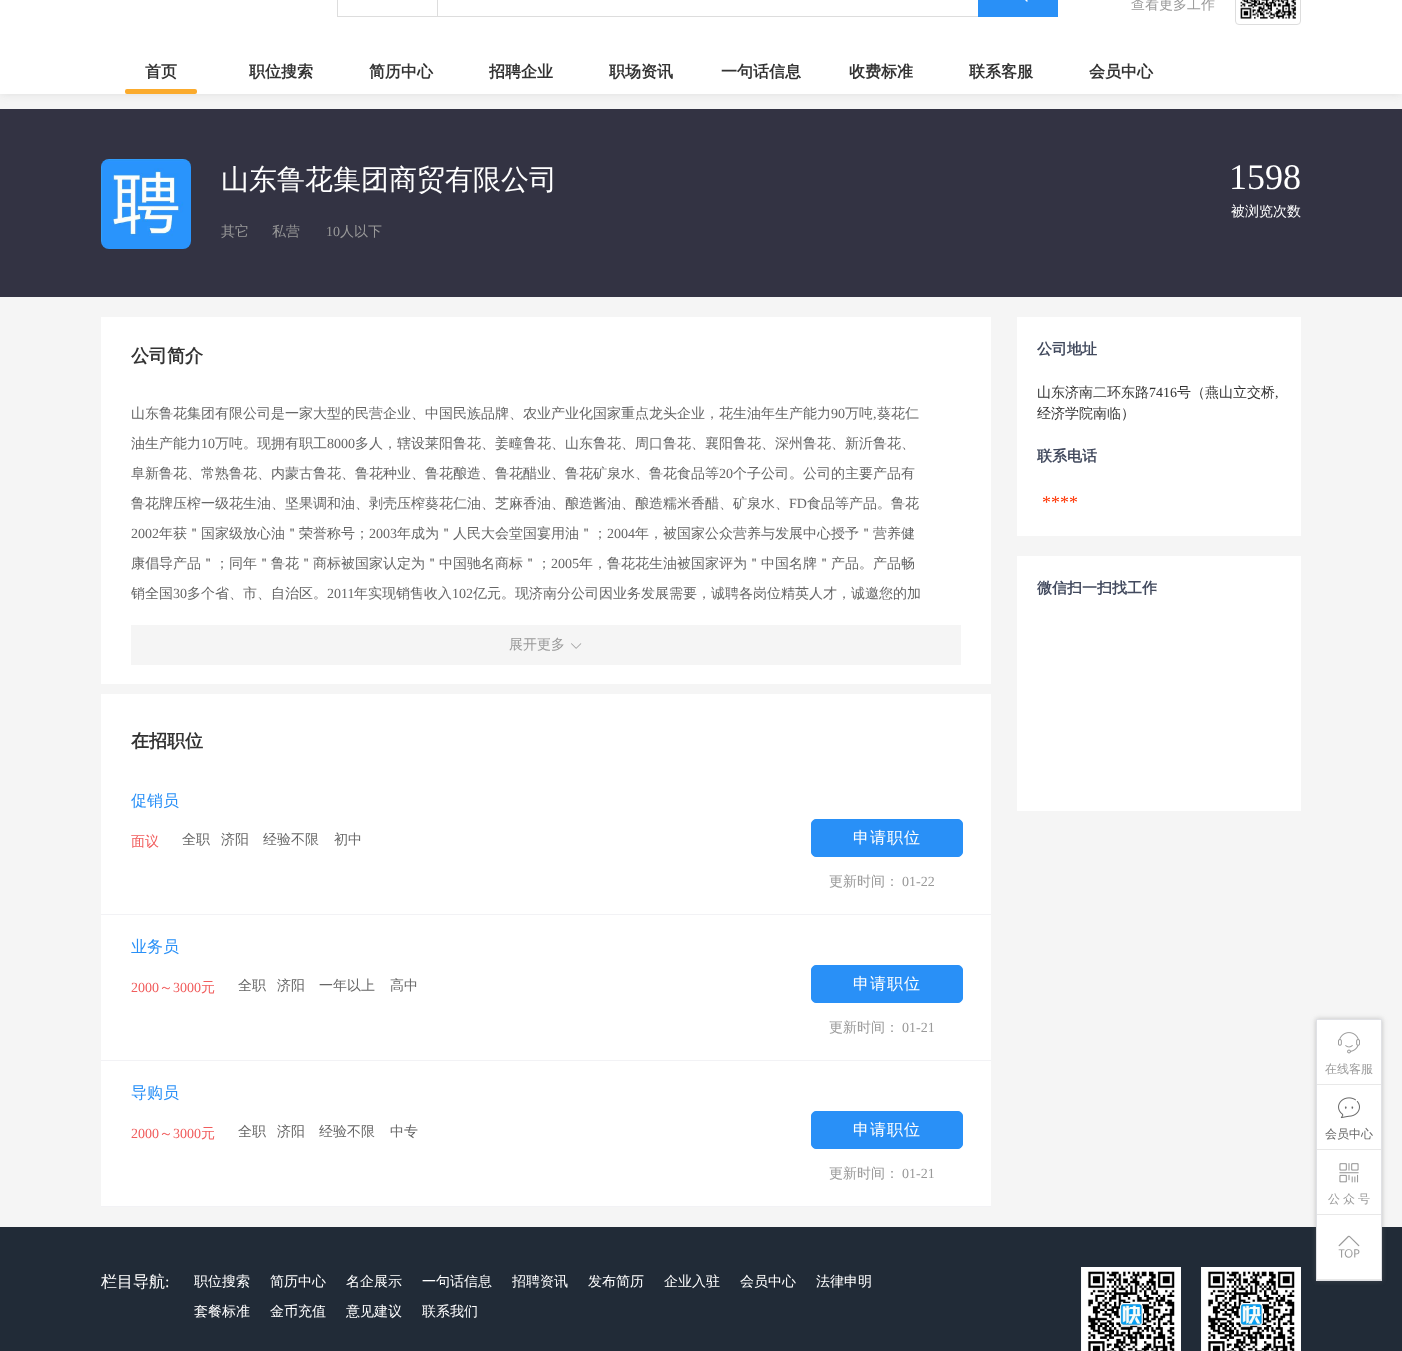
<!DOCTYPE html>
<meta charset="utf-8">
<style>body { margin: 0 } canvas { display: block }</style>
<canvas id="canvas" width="1402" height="1351"></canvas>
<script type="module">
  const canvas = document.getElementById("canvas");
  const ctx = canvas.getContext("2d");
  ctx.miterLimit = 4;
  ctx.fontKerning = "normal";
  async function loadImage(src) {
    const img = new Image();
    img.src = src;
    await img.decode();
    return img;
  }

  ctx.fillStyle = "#f5f5f5";
  ctx.fillRect(0, 0, 1402, 1351);
  ctx.fillStyle = "#dddddd";
  ctx.filter = "blur(4px)";
  ctx.beginPath();
  ctx.rect(0, -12, 1402, 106);
  ctx.fill();
  ctx.filter = "none";
  ctx.fillStyle = "#ffffff";
  ctx.fillRect(0, 0, 1402, 94);
  ctx.strokeStyle = "#dddddd";
  ctx.strokeRect(337.5, -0.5, 100, 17);
  ctx.fillStyle = "#dddddd";
  ctx.fillRect(438, 16, 540, 1);
  ctx.fillStyle = "#2990f7";
  ctx.fillRect(978, 0, 80, 17);
  ctx.drawImage(await loadImage("img1.png"), 1025, 0, 3, 2);
  ctx.font = "500 14px WenQuanYi Zen Hei";
  ctx.fillStyle = "#999999";
  ctx.fillText("查看更多工作", 1131, 9);
  ctx.beginPath();
  ctx.roundRect(1235.5, -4.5, 65, 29, 3.5);
  ctx.stroke();
  ctx.drawImage(await loadImage("img2.png"), 1240, 0, 57, 19);
  ctx.font = "bold 16px WenQuanYi Zen Hei";
  ctx.fillStyle = "#333333";
  ctx.fillText("首页", 145, 77);
  ctx.fillStyle = "#fbab2d";
  ctx.beginPath();
  ctx.roundRect(125, 89, 72, 5, 2);
  ctx.fill();
  ctx.fillStyle = "#333333";
  ctx.fillText("职位搜索", 249, 77);
  ctx.fillText("简历中心", 369, 77);
  ctx.fillText("招聘企业", 489, 77);
  ctx.fillText("职场资讯", 609, 77);
  ctx.fillText("一句话信息", 721, 77);
  ctx.fillText("收费标准", 849, 77);
  ctx.fillText("联系客服", 969, 77);
  ctx.fillText("会员中心", 1089, 77);
  ctx.fillStyle = "#212b37";
  ctx.fillRect(0, 1227, 1402, 124);
  ctx.fillStyle = "rgba(110, 110, 110, 0.4)";
  ctx.filter = "blur(2.5px)";
  ctx.beginPath();
  ctx.rect(1316, 1019, 66, 262);
  ctx.fill();
  ctx.filter = "none";
  ctx.fillStyle = "#ffffff";
  ctx.fillRect(1317, 1020, 64, 259);
  ctx.strokeStyle = "#e0e1e5";
  ctx.strokeRect(1316.5, 1019.5, 65, 261);
  ctx.fillStyle = "#e8e8e8";
  ctx.fillRect(1317, 1084, 64, 1);
  ctx.drawImage(await loadImage("img3.png"), 1338, 1032, 22, 22);
  ctx.font = "500 12px WenQuanYi Zen Hei";
  ctx.fillStyle = "#999999";
  ctx.fillText("在线客服", 1325, 1073);
  ctx.fillStyle = "#e8e8e8";
  ctx.fillRect(1317, 1149, 64, 1);
  ctx.drawImage(await loadImage("img4.png"), 1338, 1097, 22, 22);
  ctx.fillStyle = "#666666";
  ctx.fillText("会员中心", 1325, 1138);
  ctx.fillStyle = "#e8e8e8";
  ctx.fillRect(1317, 1214, 64, 1);
  ctx.drawImage(await loadImage("img5.png"), 1339, 1163, 20, 20);
  ctx.fillStyle = "#999999";
  ctx.fillText("公", 1328, 1203);
  ctx.fillText("众", 1343, 1203);
  ctx.fillText("号", 1358, 1203);
  ctx.fillStyle = "#e8e8e8";
  ctx.fillRect(1317, 1279, 64, 1);
  ctx.drawImage(await loadImage("img6.png"), 1338, 1235, 22, 23);
  ctx.fillStyle = "#333343";
  ctx.fillRect(0, 109, 1402, 188);
  ctx.drawImage(await loadImage("img7.png"), 101, 159, 90, 90);
  ctx.font = "500 28px WenQuanYi Zen Hei";
  ctx.fillStyle = "#ffffff";
  ctx.fillText("山东鲁花集团商贸有限公司", 221, 189);
  ctx.font = "500 14px WenQuanYi Zen Hei";
  ctx.fillStyle = "#999999";
  ctx.fillText("其它", 221, 236);
  ctx.fillText("私营", 272, 236);
  ctx.font = "14px Liberation Serif";
  ctx.fillText("10", 326, 236);
  ctx.font = "500 14px WenQuanYi Zen Hei";
  ctx.fillText("人以下", 340, 236);
  ctx.font = "36px Liberation Serif";
  ctx.fillStyle = "#ffffff";
  ctx.fillText("1598", 1229, 189);
  ctx.font = "500 14px WenQuanYi Zen Hei";
  ctx.fillText("被浏览次数", 1231, 216);
  ctx.fillRect(101, 317, 890, 367);
  ctx.font = "bold 18px WenQuanYi Zen Hei";
  ctx.fillStyle = "#333333";
  ctx.fillText("公司简介", 131, 362);
  ctx.font = "500 14px WenQuanYi Zen Hei";
  ctx.fillStyle = "#666666";
  ctx.fillText("山东鲁花集团有限公司是一家大型的民营企业、中国民族品牌、农业产业化国家重点龙头企业，花生油年生产能力", 131, 418);
  ctx.font = "14px Liberation Serif";
  ctx.fillText("90", 831, 418);
  ctx.font = "500 14px WenQuanYi Zen Hei";
  ctx.fillText("万吨", 845, 418);
  ctx.font = "14px Liberation Serif";
  ctx.fillText(",", 873, 418);
  ctx.font = "500 14px WenQuanYi Zen Hei";
  ctx.fillText("葵花仁", 877, 418);
  ctx.fillText("油生产能力", 131, 448);
  ctx.font = "14px Liberation Serif";
  ctx.fillText("10", 201, 448);
  ctx.font = "500 14px WenQuanYi Zen Hei";
  ctx.fillText("万吨。现拥有职工", 215, 448);
  ctx.font = "14px Liberation Serif";
  ctx.fillText("8000", 327, 448);
  ctx.font = "500 14px WenQuanYi Zen Hei";
  ctx.fillText("多人，辖设莱阳鲁花、姜疃鲁花、山东鲁花、周口鲁花、襄阳鲁花、深州鲁花、新沂鲁花、", 355, 448);
  ctx.fillText("阜新鲁花、常熟鲁花、内蒙古鲁花、鲁花种业、鲁花酿造、鲁花醋业、鲁花矿泉水、鲁花食品等", 131, 478);
  ctx.font = "14px Liberation Serif";
  ctx.fillText("20", 719, 478);
  ctx.font = "500 14px WenQuanYi Zen Hei";
  ctx.fillText("个子公司。公司的主要产品有", 733, 478);
  ctx.fillText("鲁花牌压榨一级花生油、坚果调和油、剥壳压榨葵花仁油、芝麻香油、酿造酱油、酿造糯米香醋、矿泉水、", 131, 508);
  ctx.font = "14px Liberation Serif";
  ctx.fillText("FD", 789, 508);
  ctx.font = "500 14px WenQuanYi Zen Hei";
  ctx.fillText("食品等产品。鲁花", 807, 508);
  ctx.font = "14px Liberation Serif";
  ctx.fillText("2002", 131, 538);
  ctx.font = "500 14px WenQuanYi Zen Hei";
  ctx.fillText("年获＂国家级放心油＂荣誉称号；", 159, 538);
  ctx.font = "14px Liberation Serif";
  ctx.fillText("2003", 369, 538);
  ctx.font = "500 14px WenQuanYi Zen Hei";
  ctx.fillText("年成为＂人民大会堂国宴用油＂；", 397, 538);
  ctx.font = "14px Liberation Serif";
  ctx.fillText("2004", 607, 538);
  ctx.font = "500 14px WenQuanYi Zen Hei";
  ctx.fillText("年，被国家公众营养与发展中心授予＂营养健", 635, 538);
  ctx.fillText("康倡导产品＂；同年＂鲁花＂商标被国家认定为＂中国驰名商标＂；", 131, 568);
  ctx.font = "14px Liberation Serif";
  ctx.fillText("2005", 551, 568);
  ctx.font = "500 14px WenQuanYi Zen Hei";
  ctx.fillText("年，鲁花花生油被国家评为＂中国名牌＂产品。产品畅", 579, 568);
  ctx.fillText("销全国", 131, 598);
  ctx.font = "14px Liberation Serif";
  ctx.fillText("30", 173, 598);
  ctx.font = "500 14px WenQuanYi Zen Hei";
  ctx.fillText("多个省、市、自治区。", 187, 598);
  ctx.font = "14px Liberation Serif";
  ctx.fillText("2011", 327, 598);
  ctx.font = "500 14px WenQuanYi Zen Hei";
  ctx.fillText("年实现销售收入", 354, 598);
  ctx.font = "14px Liberation Serif";
  ctx.fillText("102", 452, 598);
  ctx.font = "500 14px WenQuanYi Zen Hei";
  ctx.fillText("亿元。现济南分公司因业务发展需要，诚聘各岗位精英人才，诚邀您的加", 473, 598);
  ctx.fillStyle = "#f5f5f5";
  ctx.fillRect(131, 625, 830, 40);
  ctx.fillStyle = "#999999";
  ctx.fillText("展开更多", 509, 649);
  ctx.drawImage(await loadImage("img8.png"), 571, 643, 11, 6);
  ctx.fillStyle = "#ffffff";
  ctx.fillRect(101, 694, 890, 512);
  ctx.font = "bold 18px WenQuanYi Zen Hei";
  ctx.fillStyle = "#333333";
  ctx.fillText("在招职位", 131, 747);
  ctx.fillStyle = "#f2f2f5";
  ctx.fillRect(101, 914, 890, 1);
  ctx.font = "500 16px WenQuanYi Zen Hei";
  ctx.fillStyle = "#2990f7";
  ctx.fillText("促销员", 131, 806);
  ctx.font = "500 14px WenQuanYi Zen Hei";
  ctx.fillStyle = "#f15d5d";
  ctx.fillText("面议", 131, 846);
  ctx.fillStyle = "#666666";
  ctx.fillText("全职", 182, 844);
  ctx.fillText("济阳", 221, 844);
  ctx.fillText("经验不限", 263, 844);
  ctx.fillText("初中", 334, 844);
  ctx.fillStyle = "#2990f7";
  ctx.beginPath();
  ctx.roundRect(811.5, 819.5, 151, 37, 4.5);
  ctx.fill();
  ctx.strokeStyle = "#2990f7";
  ctx.stroke();
  ctx.letterSpacing = "1px";
  ctx.font = "500 16px WenQuanYi Zen Hei";
  ctx.fillStyle = "#ffffff";
  ctx.fillText("申请职位", 853, 843);
  ctx.letterSpacing = "0px";
  ctx.font = "500 14px WenQuanYi Zen Hei";
  ctx.fillStyle = "#999999";
  ctx.fillText("更新时间：", 829, 886);
  ctx.font = "14px Liberation Serif";
  ctx.fillText("01-22", 902, 886);
  ctx.fillStyle = "#f2f2f5";
  ctx.fillRect(101, 1060, 890, 1);
  ctx.font = "500 16px WenQuanYi Zen Hei";
  ctx.fillStyle = "#2990f7";
  ctx.fillText("业务员", 131, 952);
  ctx.font = "14px Liberation Serif";
  ctx.fillStyle = "#f15d5d";
  ctx.fillText("2000", 131, 992);
  ctx.font = "500 14px WenQuanYi Zen Hei";
  ctx.fillText("～", 159, 992);
  ctx.font = "14px Liberation Serif";
  ctx.fillText("3000", 173, 992);
  ctx.font = "500 14px WenQuanYi Zen Hei";
  ctx.fillText("元", 201, 992);
  ctx.fillStyle = "#666666";
  ctx.fillText("全职", 238, 990);
  ctx.fillText("济阳", 277, 990);
  ctx.fillText("一年以上", 319, 990);
  ctx.fillText("高中", 390, 990);
  ctx.fillStyle = "#2990f7";
  ctx.beginPath();
  ctx.roundRect(811.5, 965.5, 151, 37, 4.5);
  ctx.fill();
  ctx.stroke();
  ctx.letterSpacing = "1px";
  ctx.font = "500 16px WenQuanYi Zen Hei";
  ctx.fillStyle = "#ffffff";
  ctx.fillText("申请职位", 853, 989);
  ctx.letterSpacing = "0px";
  ctx.font = "500 14px WenQuanYi Zen Hei";
  ctx.fillStyle = "#999999";
  ctx.fillText("更新时间：", 829, 1032);
  ctx.font = "14px Liberation Serif";
  ctx.fillText("01-21", 902, 1032);
  ctx.fillStyle = "#f2f2f5";
  ctx.fillRect(101, 1206, 890, 1);
  ctx.font = "500 16px WenQuanYi Zen Hei";
  ctx.fillStyle = "#2990f7";
  ctx.fillText("导购员", 131, 1098);
  ctx.font = "14px Liberation Serif";
  ctx.fillStyle = "#f15d5d";
  ctx.fillText("2000", 131, 1138);
  ctx.font = "500 14px WenQuanYi Zen Hei";
  ctx.fillText("～", 159, 1138);
  ctx.font = "14px Liberation Serif";
  ctx.fillText("3000", 173, 1138);
  ctx.font = "500 14px WenQuanYi Zen Hei";
  ctx.fillText("元", 201, 1138);
  ctx.fillStyle = "#666666";
  ctx.fillText("全职", 238, 1136);
  ctx.fillText("济阳", 277, 1136);
  ctx.fillText("经验不限", 319, 1136);
  ctx.fillText("中专", 390, 1136);
  ctx.fillStyle = "#2990f7";
  ctx.beginPath();
  ctx.roundRect(811.5, 1111.5, 151, 37, 4.5);
  ctx.fill();
  ctx.stroke();
  ctx.letterSpacing = "1px";
  ctx.font = "500 16px WenQuanYi Zen Hei";
  ctx.fillStyle = "#ffffff";
  ctx.fillText("申请职位", 853, 1135);
  ctx.letterSpacing = "0px";
  ctx.font = "500 14px WenQuanYi Zen Hei";
  ctx.fillStyle = "#999999";
  ctx.fillText("更新时间：", 829, 1178);
  ctx.font = "14px Liberation Serif";
  ctx.fillText("01-21", 902, 1178);
  ctx.fillStyle = "#ffffff";
  ctx.fillRect(1017, 317, 284, 219);
  ctx.font = "bold 15px WenQuanYi Zen Hei";
  ctx.fillStyle = "#424a5e";
  ctx.fillText("公司地址", 1037, 354);
  ctx.font = "500 14px WenQuanYi Zen Hei";
  ctx.fillStyle = "#333333";
  ctx.fillText("山东济南二环东路", 1037, 397);
  ctx.font = "14px Liberation Serif";
  ctx.fillText("7416", 1149, 397);
  ctx.font = "500 14px WenQuanYi Zen Hei";
  ctx.fillText("号（燕山立交桥", 1177, 397);
  ctx.font = "14px Liberation Serif";
  ctx.fillText(",", 1275, 397);
  ctx.font = "500 14px WenQuanYi Zen Hei";
  ctx.fillText("经济学院南临）", 1037, 418);
  ctx.font = "bold 15px WenQuanYi Zen Hei";
  ctx.fillStyle = "#424a5e";
  ctx.fillText("联系电话", 1037, 461);
  ctx.font = "18px Liberation Serif";
  ctx.fillStyle = "#ff3300";
  ctx.fillText("****", 1042, 508);
  ctx.fillStyle = "#ffffff";
  ctx.fillRect(1017, 556, 284, 255);
  ctx.font = "bold 15px WenQuanYi Zen Hei";
  ctx.fillStyle = "#424a5e";
  ctx.fillText("微信扫一扫找工作", 1037, 593);
  ctx.font = "500 16px WenQuanYi Zen Hei";
  ctx.fillStyle = "#ffffff";
  ctx.fillText("栏目导航", 101, 1287);
  ctx.font = "16px Liberation Serif";
  ctx.fillText(":", 165, 1287);
  ctx.font = "500 14px WenQuanYi Zen Hei";
  ctx.fillText("职位搜索", 194, 1286);
  ctx.fillText("简历中心", 270, 1286);
  ctx.fillText("名企展示", 346, 1286);
  ctx.fillText("一句话信息", 422, 1286);
  ctx.fillText("招聘资讯", 512, 1286);
  ctx.fillText("发布简历", 588, 1286);
  ctx.fillText("企业入驻", 664, 1286);
  ctx.fillText("会员中心", 740, 1286);
  ctx.fillText("法律申明", 816, 1286);
  ctx.fillText("套餐标准", 194, 1316);
  ctx.fillText("金币充值", 270, 1316);
  ctx.fillText("意见建议", 346, 1316);
  ctx.fillText("联系我们", 422, 1316);
  ctx.drawImage(await loadImage("img9.png"), 1081, 1267, 100, 84);
  ctx.drawImage(await loadImage("img10.png"), 1201, 1267, 100, 84);
</script>
